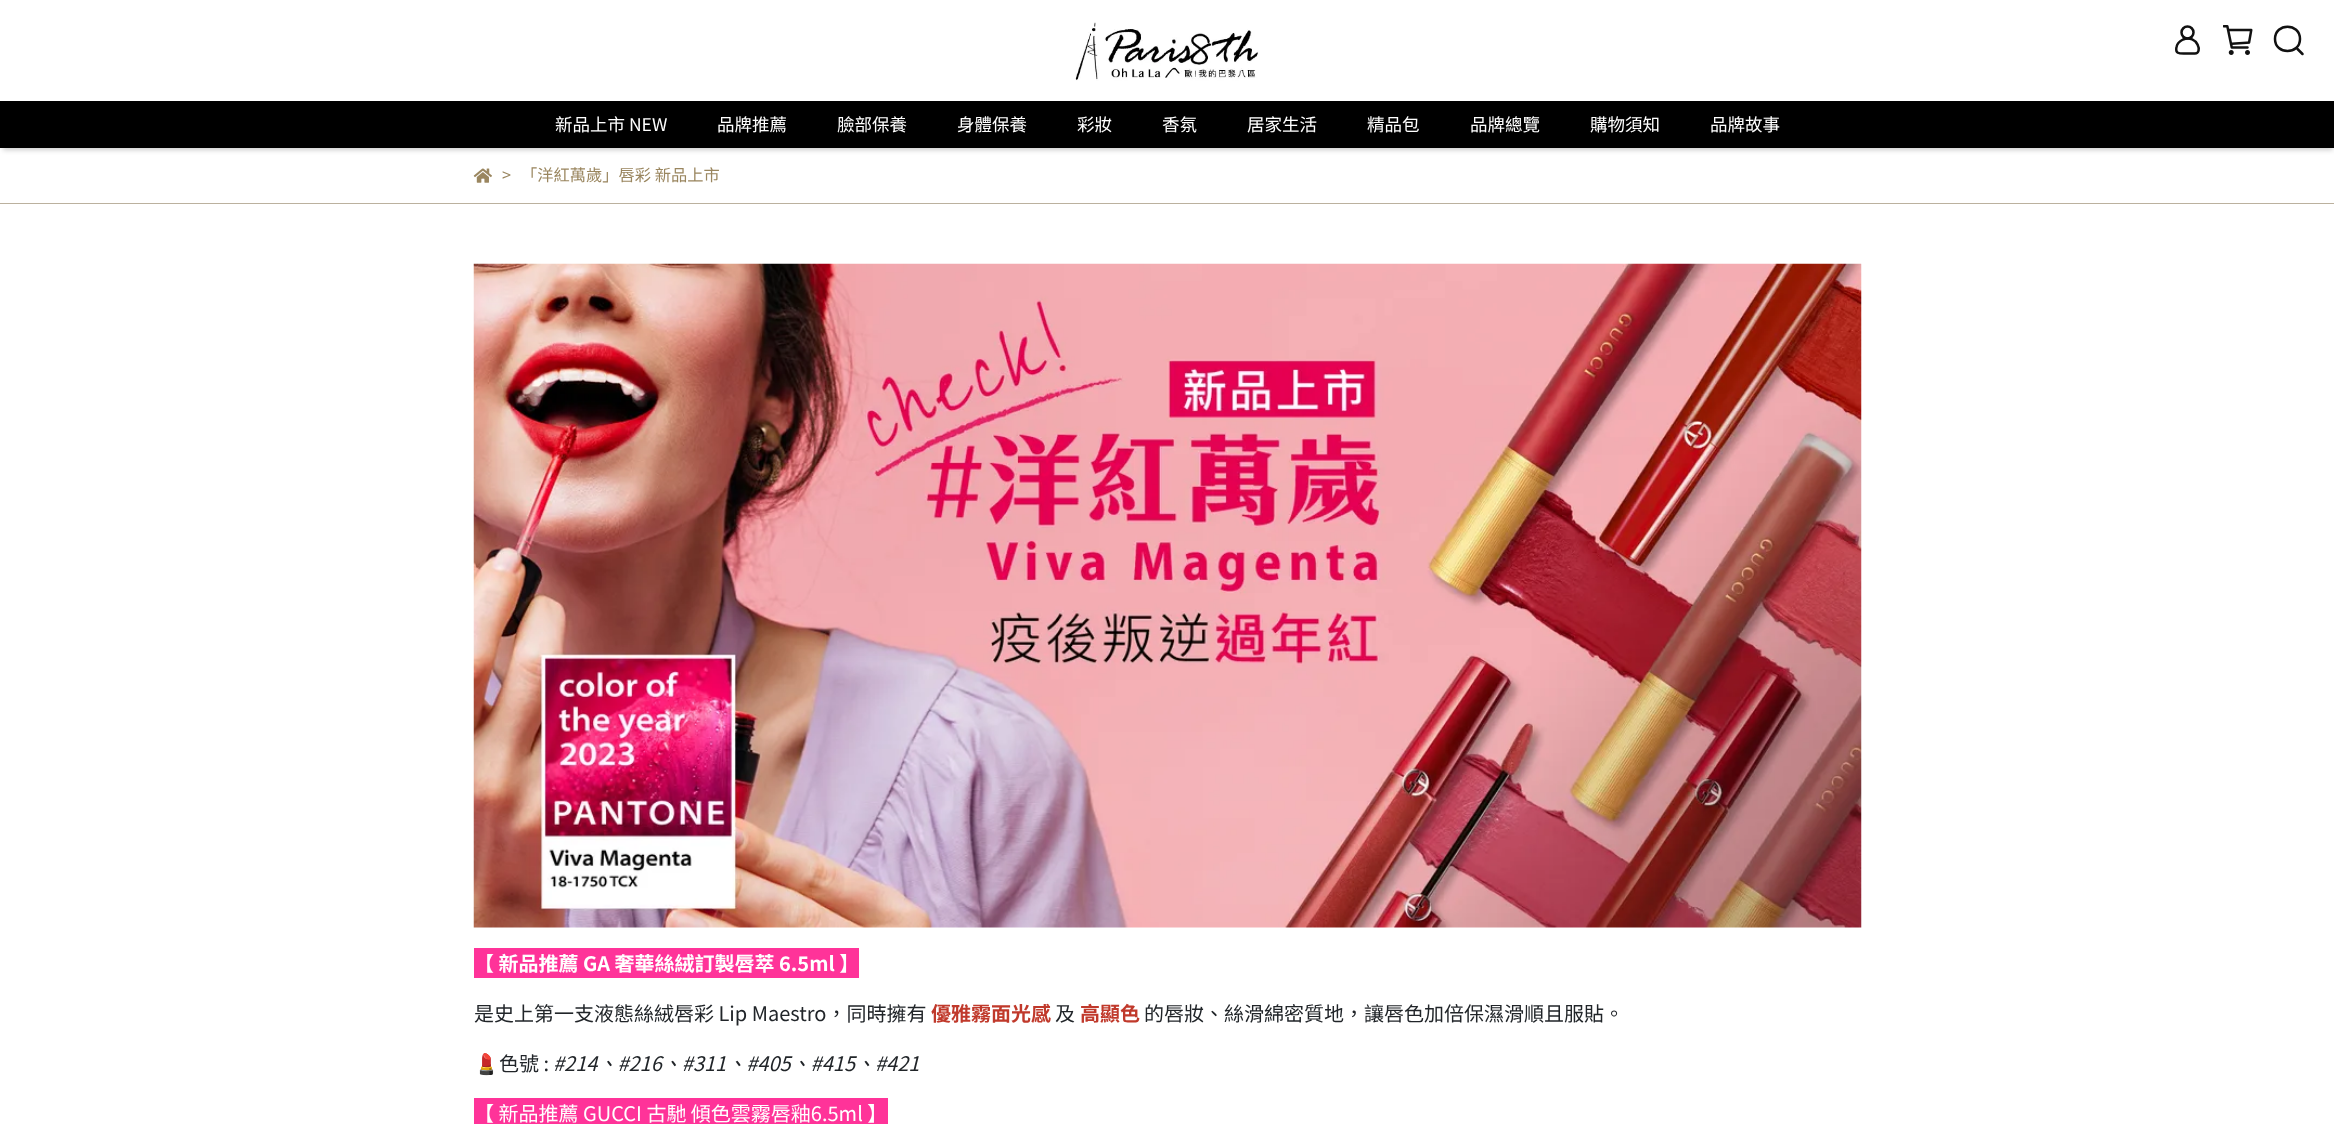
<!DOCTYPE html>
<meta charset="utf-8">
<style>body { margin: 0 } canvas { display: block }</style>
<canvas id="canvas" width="2334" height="1124"></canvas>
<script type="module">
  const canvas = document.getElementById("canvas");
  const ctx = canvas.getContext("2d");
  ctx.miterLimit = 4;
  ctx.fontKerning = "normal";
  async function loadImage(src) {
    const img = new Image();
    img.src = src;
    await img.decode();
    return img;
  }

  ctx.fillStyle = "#ffffff";
  ctx.fillRect(0, 0, 2334, 1124);
  ctx.drawImage(await loadImage("img1.png"), 1075, 22, 184, 59);
  ctx.beginPath();
  ctx.arc(2187.5, 32.5, 6, 0, Math.PI * 2);
  ctx.strokeStyle = "#111111";
  ctx.lineWidth = 2.5;
  ctx.stroke();
  ctx.beginPath();
  ctx.moveTo(2194.5, 53.5);
  ctx.lineTo(2185, 53.5);
  ctx.bezierCurveTo(2179.5, 53.5, 2175, 54, 2176.5, 47);
  ctx.bezierCurveTo(2177, 43.5, 2180, 41, 2183, 39.5);
  ctx.bezierCurveTo(2197.5, 34, 2203.5, 54, 2194.5, 53.5);
  ctx.closePath();
  ctx.stroke();
  ctx.drawImage(await loadImage("img2.png"), 2223, 25, 30, 30);
  ctx.beginPath();
  ctx.moveTo(2300, 39);
  ctx.bezierCurveTo(2300, 55, 2275, 55, 2275, 39);
  ctx.bezierCurveTo(2275, 22.5, 2300, 22.5, 2300, 39);
  ctx.closePath();
  ctx.moveTo(2297.5, 49);
  ctx.lineTo(2302.5, 54);
  ctx.lineCap = "round";
  ctx.lineJoin = "round";
  ctx.stroke();
  ctx.fillStyle = "rgba(0, 0, 0, 0.2)";
  ctx.filter = "blur(2.5px)";
  ctx.beginPath();
  ctx.rect(3, 109, 2330, 41);
  ctx.fill();
  ctx.filter = "none";
  ctx.fillStyle = "#000000";
  ctx.fillRect(0, 101, 2334, 47);
  ctx.font = "17.5px Noto Sans TC";
  ctx.fillStyle = "#ffffff";
  ctx.fillText("新品上市 NEW", 555, 131);
  ctx.fillText("品牌推薦", 717, 131);
  ctx.fillText("臉部保養", 837, 131);
  ctx.fillText("身體保養", 957, 131);
  ctx.fillText("彩妝", 1077, 131);
  ctx.fillText("香氛", 1162, 131);
  ctx.fillText("居家生活", 1247, 131);
  ctx.fillText("精品包", 1367, 131);
  ctx.fillText("品牌總覽", 1470, 131);
  ctx.fillText("購物須知", 1590, 131);
  ctx.fillText("品牌故事", 1710, 131);
  ctx.fillStyle = "#bbb19e";
  ctx.fillRect(0, 203, 2334, 1);
  ctx.drawImage(await loadImage("img3.png"), 473, 168, 19, 15);
  ctx.font = "16.25px Noto Sans TC";
  ctx.fillStyle = "#9a865f";
  ctx.fillText(">", 502, 181);
  ctx.fillText("「洋紅萬歲」唇彩 新品上市", 521, 181);
  ctx.drawImage(await loadImage("img4.png"), 473, 263, 1389, 665);
  ctx.fillStyle = "#ff3399";
  ctx.fillRect(474, 948, 385, 30);
  ctx.font = "bold 20px Noto Sans TC";
  ctx.fillStyle = "#ffffff";
  ctx.fillText("【 新品推薦 GA 奢華絲絨訂製唇萃 6.5ml 】", 474, 971);
  ctx.font = "20px Noto Sans CJK TC";
  ctx.fillStyle = "#212529";
  ctx.fillText("是史上第一支液態絲絨唇彩 Lip Maestro，同時擁有", 474, 1021);
  ctx.font = "bold 20px Noto Sans TC";
  ctx.fillStyle = "#c0392b";
  ctx.fillText("優雅霧面光感", 931, 1021);
  ctx.font = "20px Noto Sans TC";
  ctx.fillStyle = "#212529";
  ctx.fillText("及", 1055, 1021);
  ctx.font = "bold 20px Noto Sans TC";
  ctx.fillStyle = "#c0392b";
  ctx.fillText("高顯色", 1080, 1021);
  ctx.font = "20px Noto Sans CJK TC";
  ctx.fillStyle = "#212529";
  ctx.fillText("的唇妝、絲滑綿密質地，讓唇色加倍保濕滑順且服貼。", 1144, 1021);
  ctx.font = "20px Noto Color Emoji";
  ctx.fillText("💄", 474, 1071);
  ctx.font = "20px Noto Sans TC";
  ctx.fillText("色號 :", 499, 1071);
  ctx.font = "italic 20px Noto Sans TC";
  ctx.fillText("#214、#216、#311、#405、#415、#421", 553, 1071);
  ctx.fillStyle = "#ff3399";
  ctx.fillRect(474, 1098, 414, 26);
  ctx.font = "20px Noto Sans CJK TC";
  ctx.fillStyle = "#ffffff";
  ctx.fillText("【 新品推薦 GUCCI 古馳 傾色雲霧唇釉6.5ml 】", 474, 1121);
</script>
